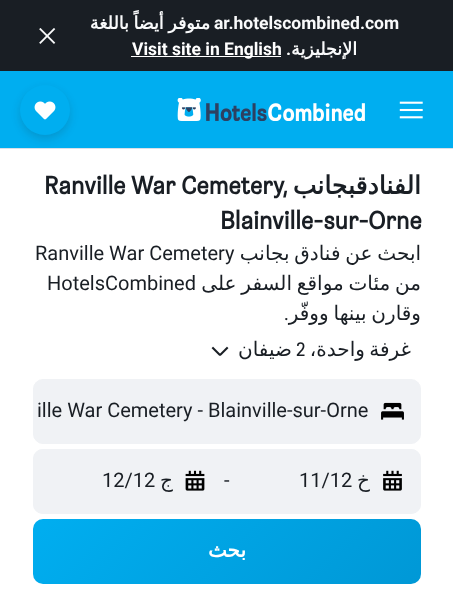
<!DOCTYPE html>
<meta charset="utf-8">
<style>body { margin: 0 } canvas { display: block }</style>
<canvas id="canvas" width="453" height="616"></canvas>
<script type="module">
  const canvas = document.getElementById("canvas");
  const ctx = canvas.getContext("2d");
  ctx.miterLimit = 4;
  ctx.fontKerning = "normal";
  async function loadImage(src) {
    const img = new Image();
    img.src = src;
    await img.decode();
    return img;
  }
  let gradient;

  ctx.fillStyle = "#ffffff";
  ctx.fillRect(0, 0, 453, 616);
  ctx.fillStyle = "#191e24";
  ctx.fillRect(0, 0, 453, 71);
  ctx.drawImage(await loadImage("img1.png"), 39, 28, 17, 16);
  ctx.wordSpacing = "-1px";
  ctx.direction = "rtl";
  ctx.font = "bold 17.5px DejaVu Sans";
  ctx.fillStyle = "#f9fafb";
  ctx.fillText("متوفر أيضاً باللغة", 210, 29);
  ctx.wordSpacing = "0px";
  ctx.direction = "ltr";
  ctx.font = "bold 17.5px Roboto";
  ctx.fillText("ar.hotelscombined.com", 214, 29);
  ctx.fillStyle = "#ffffff";
  ctx.fillRect(131, 56, 150, 1);
  ctx.fillText("Visit site in English", 132, 55);
  ctx.direction = "rtl";
  ctx.fillStyle = "#f9fafb";
  ctx.fillText(".", 291, 55);
  ctx.font = "bold 17.5px DejaVu Sans";
  ctx.fillText("الإنجليزية", 357, 55);
  ctx.fillStyle = "#d9dfe8";
  ctx.fillRect(0, 148, 453, 1);
  ctx.fillStyle = "#00aef0";
  ctx.fillRect(0, 71, 453, 77);
  ctx.fillStyle = "rgba(25, 30, 36, 0.16)";
  ctx.filter = "blur(4px)";
  ctx.beginPath();
  ctx.roundRect(20, 89, 50, 50, 25);
  ctx.fill();
  ctx.filter = "none";
  ctx.fillStyle = "#00aef0";
  ctx.beginPath();
  ctx.arc(45, 110, 25, 0, Math.PI * 2);
  ctx.fill();
  ctx.drawImage(await loadImage("img2.png"), 34, 101, 22, 19);
  ctx.drawImage(await loadImage("img3.png"), 177, 98, 188, 23);
  ctx.drawImage(await loadImage("img4.png"), 399, 101, 24, 18);
  ctx.direction = "ltr";
  ctx.font = "bold 25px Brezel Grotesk";
  ctx.fillStyle = "#191e24";
  ctx.fillText("Ranville War Cemetery,", 44, 194);
  ctx.direction = "rtl";
  ctx.font = "bold 25px DejaVu Sans";
  ctx.fillText("الفنادقبجانب", 421, 194);
  ctx.direction = "ltr";
  ctx.font = "bold 25px Brezel Grotesk";
  ctx.fillText("Blainville-sur-Orne", 220, 229);
  ctx.font = "20px Roboto";
  ctx.fillText("Ranville War Cemetery", 35, 260);
  ctx.wordSpacing = "-1.5px";
  ctx.direction = "rtl";
  ctx.font = "20px DejaVu Sans";
  ctx.fillText("ابحث عن فنادق بجانب", 421, 260);
  ctx.wordSpacing = "0px";
  ctx.direction = "ltr";
  ctx.font = "20px Roboto";
  ctx.fillText("HotelsCombined", 47, 290);
  ctx.wordSpacing = "-1.5px";
  ctx.direction = "rtl";
  ctx.font = "20px DejaVu Sans";
  ctx.fillText("من مئات مواقع السفر على", 421, 290);
  ctx.wordSpacing = "0px";
  ctx.font = "20px Roboto";
  ctx.fillText(".", 289, 320);
  ctx.wordSpacing = "-1.5px";
  ctx.font = "20px DejaVu Sans";
  ctx.fillText("وقارن بينها ووفّر", 421, 320);
  ctx.drawImage(await loadImage("img5.png"), 211, 346, 18, 10);
  ctx.wordSpacing = "0px";
  ctx.fillText("ضيفان", 292, 356);
  ctx.direction = "ltr";
  ctx.font = "20px Brezel Grotesk";
  ctx.fillText("2", 296, 356);
  ctx.save();
  ctx.beginPath();
  ctx.rect(238, 339, 173, 25);
  ctx.clip();
  ctx.wordSpacing = "-2px";
  ctx.direction = "rtl";
  ctx.font = "20px DejaVu Sans";
  ctx.fillText("غرفة واحدة،", 411, 356);
  ctx.restore();
  ctx.fillStyle = "#f0f2f5";
  ctx.beginPath();
  ctx.roundRect(33.5, 379.5, 387, 64, 9.5);
  ctx.fill();
  ctx.strokeStyle = "#f0f2f5";
  ctx.stroke();
  ctx.font = "20px Roboto";
  ctx.fillStyle = "#191e24";
  ctx.fillText("ille War Cemetery - Blainville-sur-Orne", 37, 417);
  ctx.drawImage(await loadImage("img6.png"), 381, 402, 23, 18);
  ctx.fillStyle = "#f0f2f5";
  ctx.beginPath();
  ctx.roundRect(33, 449, 388, 65, 10);
  ctx.fill();
  ctx.beginPath();
  ctx.roundRect(33, 449, 191, 65, 10);
  ctx.fill();
  ctx.fillStyle = "#191e24";
  ctx.fillText("12/12", 102, 487);
  ctx.direction = "rtl";
  ctx.font = "20px DejaVu Sans";
  ctx.fillText("ج", 173, 487);
  ctx.drawImage(await loadImage("img7.png"), 185, 470, 20, 21);
  ctx.direction = "ltr";
  ctx.font = "20px Roboto";
  ctx.fillText("-", 224, 487);
  ctx.fillStyle = "#f0f2f5";
  ctx.beginPath();
  ctx.roundRect(230, 449, 191, 65, 10);
  ctx.fill();
  ctx.fillStyle = "#191e24";
  ctx.fillText("11/12", 299, 487);
  ctx.direction = "rtl";
  ctx.font = "20px DejaVu Sans";
  ctx.fillText("خ", 370, 487);
  ctx.drawImage(await loadImage("img8.png"), 383, 470, 19, 21);
  gradient = ctx.createLinearGradient(113, 438, 340, 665);
  gradient.addColorStop(0, "#00aef0");
  gradient.addColorStop(1, "#0098d6");
  ctx.fillStyle = gradient;
  ctx.beginPath();
  ctx.roundRect(33, 519, 388, 65, 10);
  ctx.fill();
  ctx.font = "bold 20px DejaVu Sans";
  ctx.fillStyle = "#ffffff";
  ctx.fillText("بحث", 246, 557);
</script>
